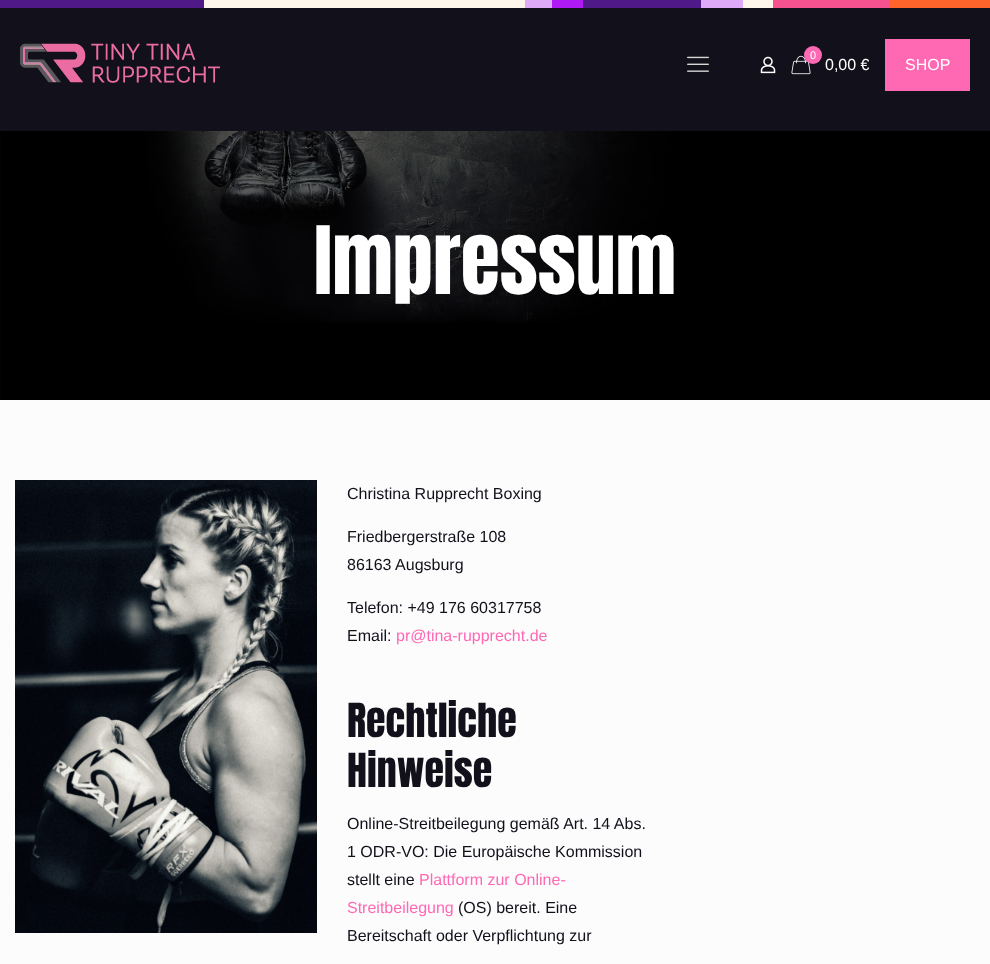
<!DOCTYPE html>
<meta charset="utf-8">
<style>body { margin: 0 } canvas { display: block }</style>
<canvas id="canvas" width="990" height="964"></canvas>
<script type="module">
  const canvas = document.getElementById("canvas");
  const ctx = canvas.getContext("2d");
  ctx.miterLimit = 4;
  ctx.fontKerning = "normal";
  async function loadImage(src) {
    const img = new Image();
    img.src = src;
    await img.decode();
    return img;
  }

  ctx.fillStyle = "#fcfcfc";
  ctx.fillRect(0, 0, 990, 964);
  ctx.fillStyle = "#12111b";
  ctx.fillRect(0, 8, 990, 123);
  ctx.drawImage(await loadImage("img1.png"), 0, 0, 990, 8);
  ctx.drawImage(await loadImage("img2.png"), 20, 43, 200, 40);
  ctx.drawImage(await loadImage("img3.png"), 687, 56, 22, 16);
  ctx.drawImage(await loadImage("img4.png"), 760, 56, 16, 18);
  ctx.drawImage(await loadImage("img5.png"), 791, 55, 20, 20);
  ctx.fillStyle = "#ff69b4";
  ctx.beginPath();
  ctx.arc(813, 55, 9, 0, Math.PI * 2);
  ctx.fill();
  ctx.font = "11px Liberation Sans";
  ctx.fillStyle = "#ffffff";
  ctx.fillText("0", 810, 59);
  ctx.font = "16px Liberation Sans";
  ctx.fillText("0,00 €", 825, 70);
  ctx.fillStyle = "#ff69b4";
  ctx.fillRect(885, 39, 85, 52);
  ctx.fillStyle = "#ffffff";
  ctx.fillText("SHOP", 905, 70);
  ctx.drawImage(await loadImage("img6.png"), 0, 131, 990, 269);
  ctx.font = "80px Anton";
  ctx.fillText("Impressum", 314, 294);
  ctx.drawImage(await loadImage("img7.png"), 15, 480, 302, 453);
  ctx.font = "16px Liberation Sans";
  ctx.fillStyle = "#12111b";
  ctx.fillText("Christina Rupprecht Boxing", 347, 499);
  ctx.fillText("Friedbergerstraße 108", 347, 542);
  ctx.fillText("86163 Augsburg", 347, 570);
  ctx.fillText("Telefon: +49 176 60317758", 347, 613);
  ctx.fillText("Email:", 347, 641);
  ctx.fillStyle = "#ff69b4";
  ctx.fillText("pr@tina-rupprecht.de", 396, 641);
  ctx.font = "40px Anton";
  ctx.fillStyle = "#12111b";
  ctx.fillText("Rechtliche", 347, 737);
  ctx.fillText("Hinweise", 347, 787);
  ctx.font = "16px Liberation Sans";
  ctx.fillText("Online-Streitbeilegung gemäß Art. 14 Abs.", 347, 829);
  ctx.fillText("1 ODR-VO: Die Europäische Kommission", 347, 857);
  ctx.fillText("stellt eine", 347, 885);
  ctx.fillStyle = "#ff69b4";
  ctx.fillText("Plattform zur Online-", 419, 885);
  ctx.fillText("Streitbeilegung", 347, 913);
  ctx.fillStyle = "#12111b";
  ctx.fillText("(OS) bereit. Eine", 458, 913);
  ctx.fillText("Bereitschaft oder Verpflichtung zur", 347, 941);
</script>
